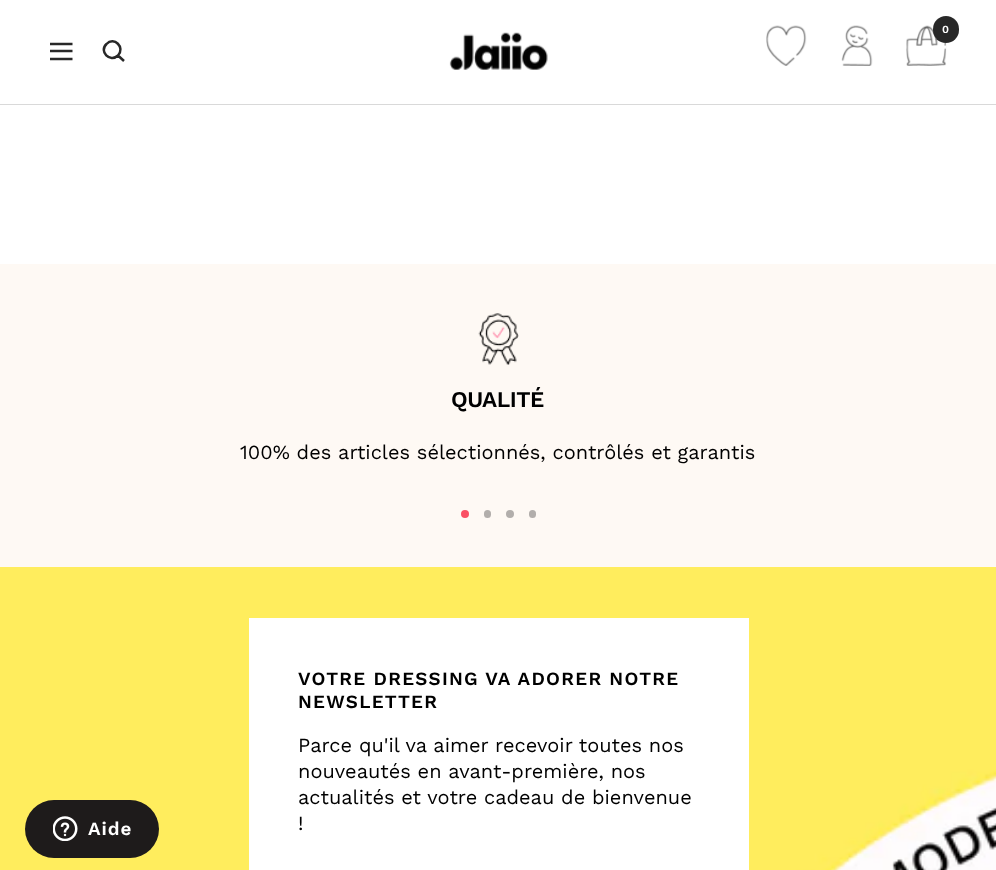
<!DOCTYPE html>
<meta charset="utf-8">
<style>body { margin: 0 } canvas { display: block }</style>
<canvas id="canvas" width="996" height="870"></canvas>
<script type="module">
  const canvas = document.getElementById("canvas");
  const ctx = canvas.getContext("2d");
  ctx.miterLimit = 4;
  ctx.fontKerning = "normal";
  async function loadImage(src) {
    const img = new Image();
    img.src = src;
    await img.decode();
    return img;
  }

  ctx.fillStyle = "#ffffff";
  ctx.fillRect(0, 0, 996, 870);
  ctx.fillStyle = "#d9d9d9";
  ctx.fillRect(0, 104, 996, 1);
  ctx.drawImage(await loadImage("img1.png"), 766, 25, 41, 41);
  ctx.drawImage(await loadImage("img2.png"), 841, 25, 32, 41);
  ctx.drawImage(await loadImage("img3.png"), 906, 25, 41, 41);
  ctx.fillStyle = "#282828";
  ctx.beginPath();
  ctx.roundRect(933, 16, 26, 27, 13);
  ctx.fill();
  ctx.font = "600 11px Work Sans";
  ctx.fillStyle = "#ffffff";
  ctx.fillText("0", 942, 33);
  ctx.beginPath();
  ctx.moveTo(50, 44);
  ctx.lineTo(72.5, 44);
  ctx.moveTo(50, 59);
  ctx.lineTo(72.5, 59);
  ctx.closePath();
  ctx.moveTo(50, 51);
  ctx.lineTo(72.5, 51);
  ctx.closePath();
  ctx.strokeStyle = "#282828";
  ctx.lineWidth = 2.5;
  ctx.stroke();
  ctx.beginPath();
  ctx.moveTo(118, 55.5);
  ctx.bezierCurveTo(125.5, 47.5, 114, 36, 106.5, 44);
  ctx.bezierCurveTo(98.5, 51.5, 110, 63, 118, 55.5);
  ctx.closePath();
  ctx.moveTo(118, 55.5);
  ctx.lineTo(124, 61);
  ctx.stroke();
  ctx.drawImage(await loadImage("img4.png"), 449, 32, 99, 38);
  ctx.fillStyle = "#fef9f4";
  ctx.fillRect(0, 264, 996, 303);
  ctx.drawImage(await loadImage("img5.png"), 478, 313, 41, 52);
  ctx.letterSpacing = "-0.5px";
  ctx.font = "600 22.5px Work Sans";
  ctx.fillStyle = "#000000";
  ctx.fillText("QUALITÉ", 451, 407);
  ctx.letterSpacing = "0px";
  ctx.font = "20px Work Sans";
  ctx.fillText("100% des articles sélectionnés, contrôlés et garantis", 240, 459);
  ctx.fillStyle = "#fa4f63";
  ctx.beginPath();
  ctx.arc(465, 514, 4, 0, Math.PI * 2);
  ctx.fill();
  ctx.fillStyle = "#b2aeab";
  ctx.beginPath();
  ctx.roundRect(484, 510, 7, 8, 3.5);
  ctx.fill();
  ctx.beginPath();
  ctx.arc(510, 514, 4, 0, Math.PI * 2);
  ctx.fill();
  ctx.beginPath();
  ctx.roundRect(529, 510, 7, 8, 3.5);
  ctx.fill();
  ctx.drawImage(await loadImage("img7.png"), 0, 567, 996, 303);
  ctx.fillStyle = "#1e1b1b";
  ctx.beginPath();
  ctx.roundRect(25, 800, 134, 58, 29);
  ctx.fill();
  ctx.drawImage(await loadImage("img6.png"), 53, 816, 25, 25);
  ctx.letterSpacing = "1px";
  ctx.font = "600 18.75px Work Sans";
  ctx.fillStyle = "#ffffff";
  ctx.fillText("Aide", 88, 835);
  ctx.fillRect(249, 618, 500, 252);
  ctx.letterSpacing = "1.25px";
  ctx.fillStyle = "#000000";
  ctx.fillText("VOTRE DRESSING VA ADORER NOTRE", 298, 685);
  ctx.fillText("NEWSLETTER", 298, 708);
  ctx.letterSpacing = "0px";
  ctx.font = "20px Work Sans";
  ctx.fillText("Parce qu'il va aimer recevoir toutes nos", 298, 752);
  ctx.fillText("nouveautés en avant-première, nos", 298, 778);
  ctx.fillText("actualités et votre cadeau de bienvenue", 298, 804);
  ctx.fillText("!", 298, 830);
</script>
